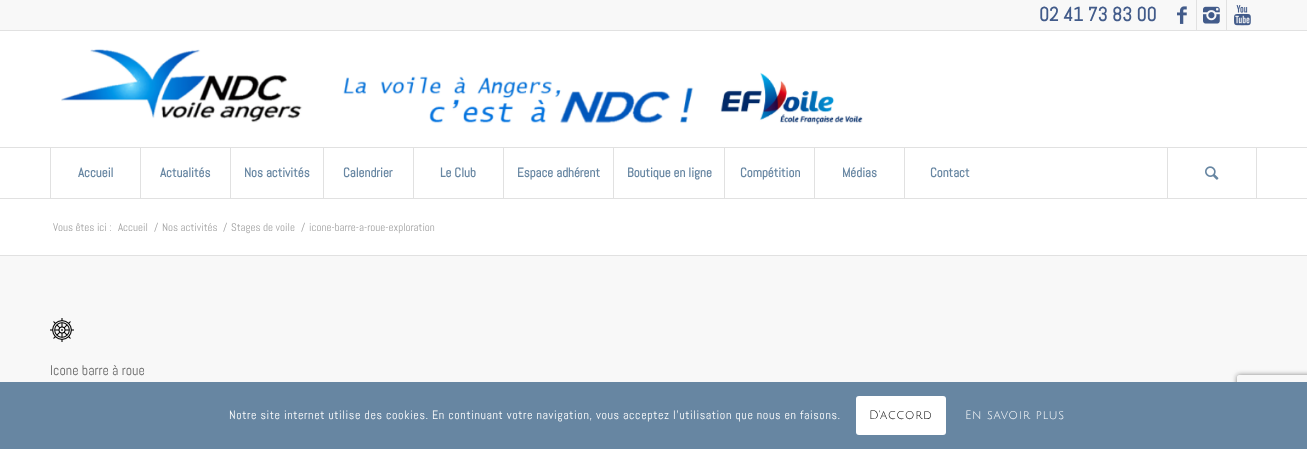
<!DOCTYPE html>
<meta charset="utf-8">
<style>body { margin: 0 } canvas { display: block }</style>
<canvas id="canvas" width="1307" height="449"></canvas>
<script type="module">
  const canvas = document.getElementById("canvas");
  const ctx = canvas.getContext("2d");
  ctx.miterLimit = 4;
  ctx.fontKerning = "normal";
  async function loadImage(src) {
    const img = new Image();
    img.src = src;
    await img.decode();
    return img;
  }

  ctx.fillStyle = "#ffffff";
  ctx.fillRect(0, 0, 1307, 449);
  ctx.fillStyle = "#f8f8f8";
  ctx.fillRect(0, 0, 1307, 30);
  ctx.fillStyle = "#e1e1e1";
  ctx.fillRect(0, 30, 1307, 1);
  ctx.font = "bold 19.5px Abel";
  ctx.fillStyle = "#425b8a";
  ctx.fillText("02 41 73 83 00", 1039, 21);
  ctx.fillStyle = "#e1e1e1";
  ctx.fillRect(1196, 0, 1, 30);
  ctx.drawImage(await loadImage("img1.png"), 1177, 6, 10, 18);
  ctx.fillRect(1226, 0, 1, 30);
  ctx.drawImage(await loadImage("img2.png"), 1203, 6, 17, 18);
  ctx.drawImage(await loadImage("img3.png"), 1234, 5, 17, 21);
  ctx.fillRect(0, 198, 1307, 1);
  ctx.drawImage(await loadImage("img4.png"), 61, 49, 802, 76);
  ctx.fillRect(0, 147, 1307, 1);
  ctx.fillRect(50, 148, 1, 50);
  ctx.font = "bold 13px Abel";
  ctx.fillStyle = "#6786a2";
  ctx.fillText("Accueil", 78, 177);
  ctx.fillStyle = "#e1e1e1";
  ctx.fillRect(140, 148, 1, 50);
  ctx.fillStyle = "#6786a2";
  ctx.fillText("Actualités", 160, 177);
  ctx.fillStyle = "#e1e1e1";
  ctx.fillRect(230, 148, 1, 50);
  ctx.fillStyle = "#6786a2";
  ctx.fillText("Nos activités", 244, 177);
  ctx.fillStyle = "#e1e1e1";
  ctx.fillRect(323, 148, 1, 50);
  ctx.fillStyle = "#6786a2";
  ctx.fillText("Calendrier", 343, 177);
  ctx.fillStyle = "#e1e1e1";
  ctx.fillRect(413, 148, 1, 50);
  ctx.fillStyle = "#6786a2";
  ctx.fillText("Le Club", 440, 177);
  ctx.fillStyle = "#e1e1e1";
  ctx.fillRect(503, 148, 1, 50);
  ctx.fillStyle = "#6786a2";
  ctx.fillText("Espace adhérent", 517, 177);
  ctx.fillStyle = "#e1e1e1";
  ctx.fillRect(613, 148, 1, 50);
  ctx.fillStyle = "#6786a2";
  ctx.fillText("Boutique en ligne", 627, 177);
  ctx.fillStyle = "#e1e1e1";
  ctx.fillRect(724, 148, 1, 50);
  ctx.fillStyle = "#6786a2";
  ctx.fillText("Compétition", 740, 177);
  ctx.fillStyle = "#e1e1e1";
  ctx.fillRect(814, 148, 1, 50);
  ctx.fillStyle = "#6786a2";
  ctx.fillText("Médias", 842, 177);
  ctx.fillStyle = "#e1e1e1";
  ctx.fillRect(904, 148, 1, 50);
  ctx.fillStyle = "#6786a2";
  ctx.fillText("Contact", 930, 177);
  ctx.fillStyle = "#e1e1e1";
  ctx.fillRect(1256, 148, 1, 50);
  ctx.fillRect(1167, 148, 1, 50);
  ctx.drawImage(await loadImage("img5.png"), 1205, 166, 14, 14);
  ctx.font = "11px Abel";
  ctx.fillStyle = "#a2a2a2";
  ctx.fillText("Vous êtes ici :", 53, 231);
  ctx.fillText("Accueil", 118, 231);
  ctx.fillText("/", 154, 231);
  ctx.fillText("Nos activités", 162, 231);
  ctx.fillText("/", 223, 231);
  ctx.fillText("Stages de voile", 231, 231);
  ctx.fillText("/", 301, 231);
  ctx.fillText("icone-barre-a-roue-exploration", 309, 231);
  ctx.fillStyle = "#f8f8f8";
  ctx.fillRect(0, 256, 1307, 126);
  ctx.fillStyle = "#e1e1e1";
  ctx.fillRect(0, 255, 1307, 1);
  ctx.drawImage(await loadImage("img6.png"), 50, 318, 24, 24);
  ctx.font = "14px Abel";
  ctx.fillStyle = "#666666";
  ctx.fillText("Icone barre à roue", 50, 375);
  ctx.save();
  ctx.beginPath();
  ctx.moveTo(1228, 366);
  ctx.lineTo(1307, 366);
  ctx.lineTo(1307, 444);
  ctx.lineTo(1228, 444);
  ctx.closePath();
  ctx.moveTo(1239, 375);
  ctx.lineTo(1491, 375);
  ctx.bezierCurveTo(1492, 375, 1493, 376, 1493, 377);
  ctx.lineTo(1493, 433);
  ctx.bezierCurveTo(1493, 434, 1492, 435, 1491, 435);
  ctx.lineTo(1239, 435);
  ctx.bezierCurveTo(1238, 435, 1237, 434, 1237, 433);
  ctx.lineTo(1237, 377);
  ctx.bezierCurveTo(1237, 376, 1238, 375, 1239, 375);
  ctx.closePath();
  ctx.clip("evenodd");
  ctx.fillStyle = "#808080";
  ctx.filter = "blur(2.5px)";
  ctx.beginPath();
  ctx.roundRect(1237, 375, 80, 60, 2);
  ctx.fill();
  ctx.filter = "none";
  ctx.restore();
  ctx.fillStyle = "#6786a2";
  ctx.fillRect(0, 382, 1307, 67);
  ctx.letterSpacing = "0.6px";
  ctx.font = "12px Abel";
  ctx.fillStyle = "#ffffff";
  ctx.fillText("Notre site internet utilise des cookies. En continuant votre navigation, vous acceptez l'utilisation que nous en faisons.", 229, 419);
  ctx.beginPath();
  ctx.roundRect(856, 396, 90, 39, 3);
  ctx.fill();
  ctx.font = "12px Julius Sans One";
  ctx.fillStyle = "#000000";
  ctx.fillText("D'accord", 869, 419);
  ctx.fillStyle = "#ffffff";
  ctx.fillText("En savoir plus", 965, 419);
</script>
